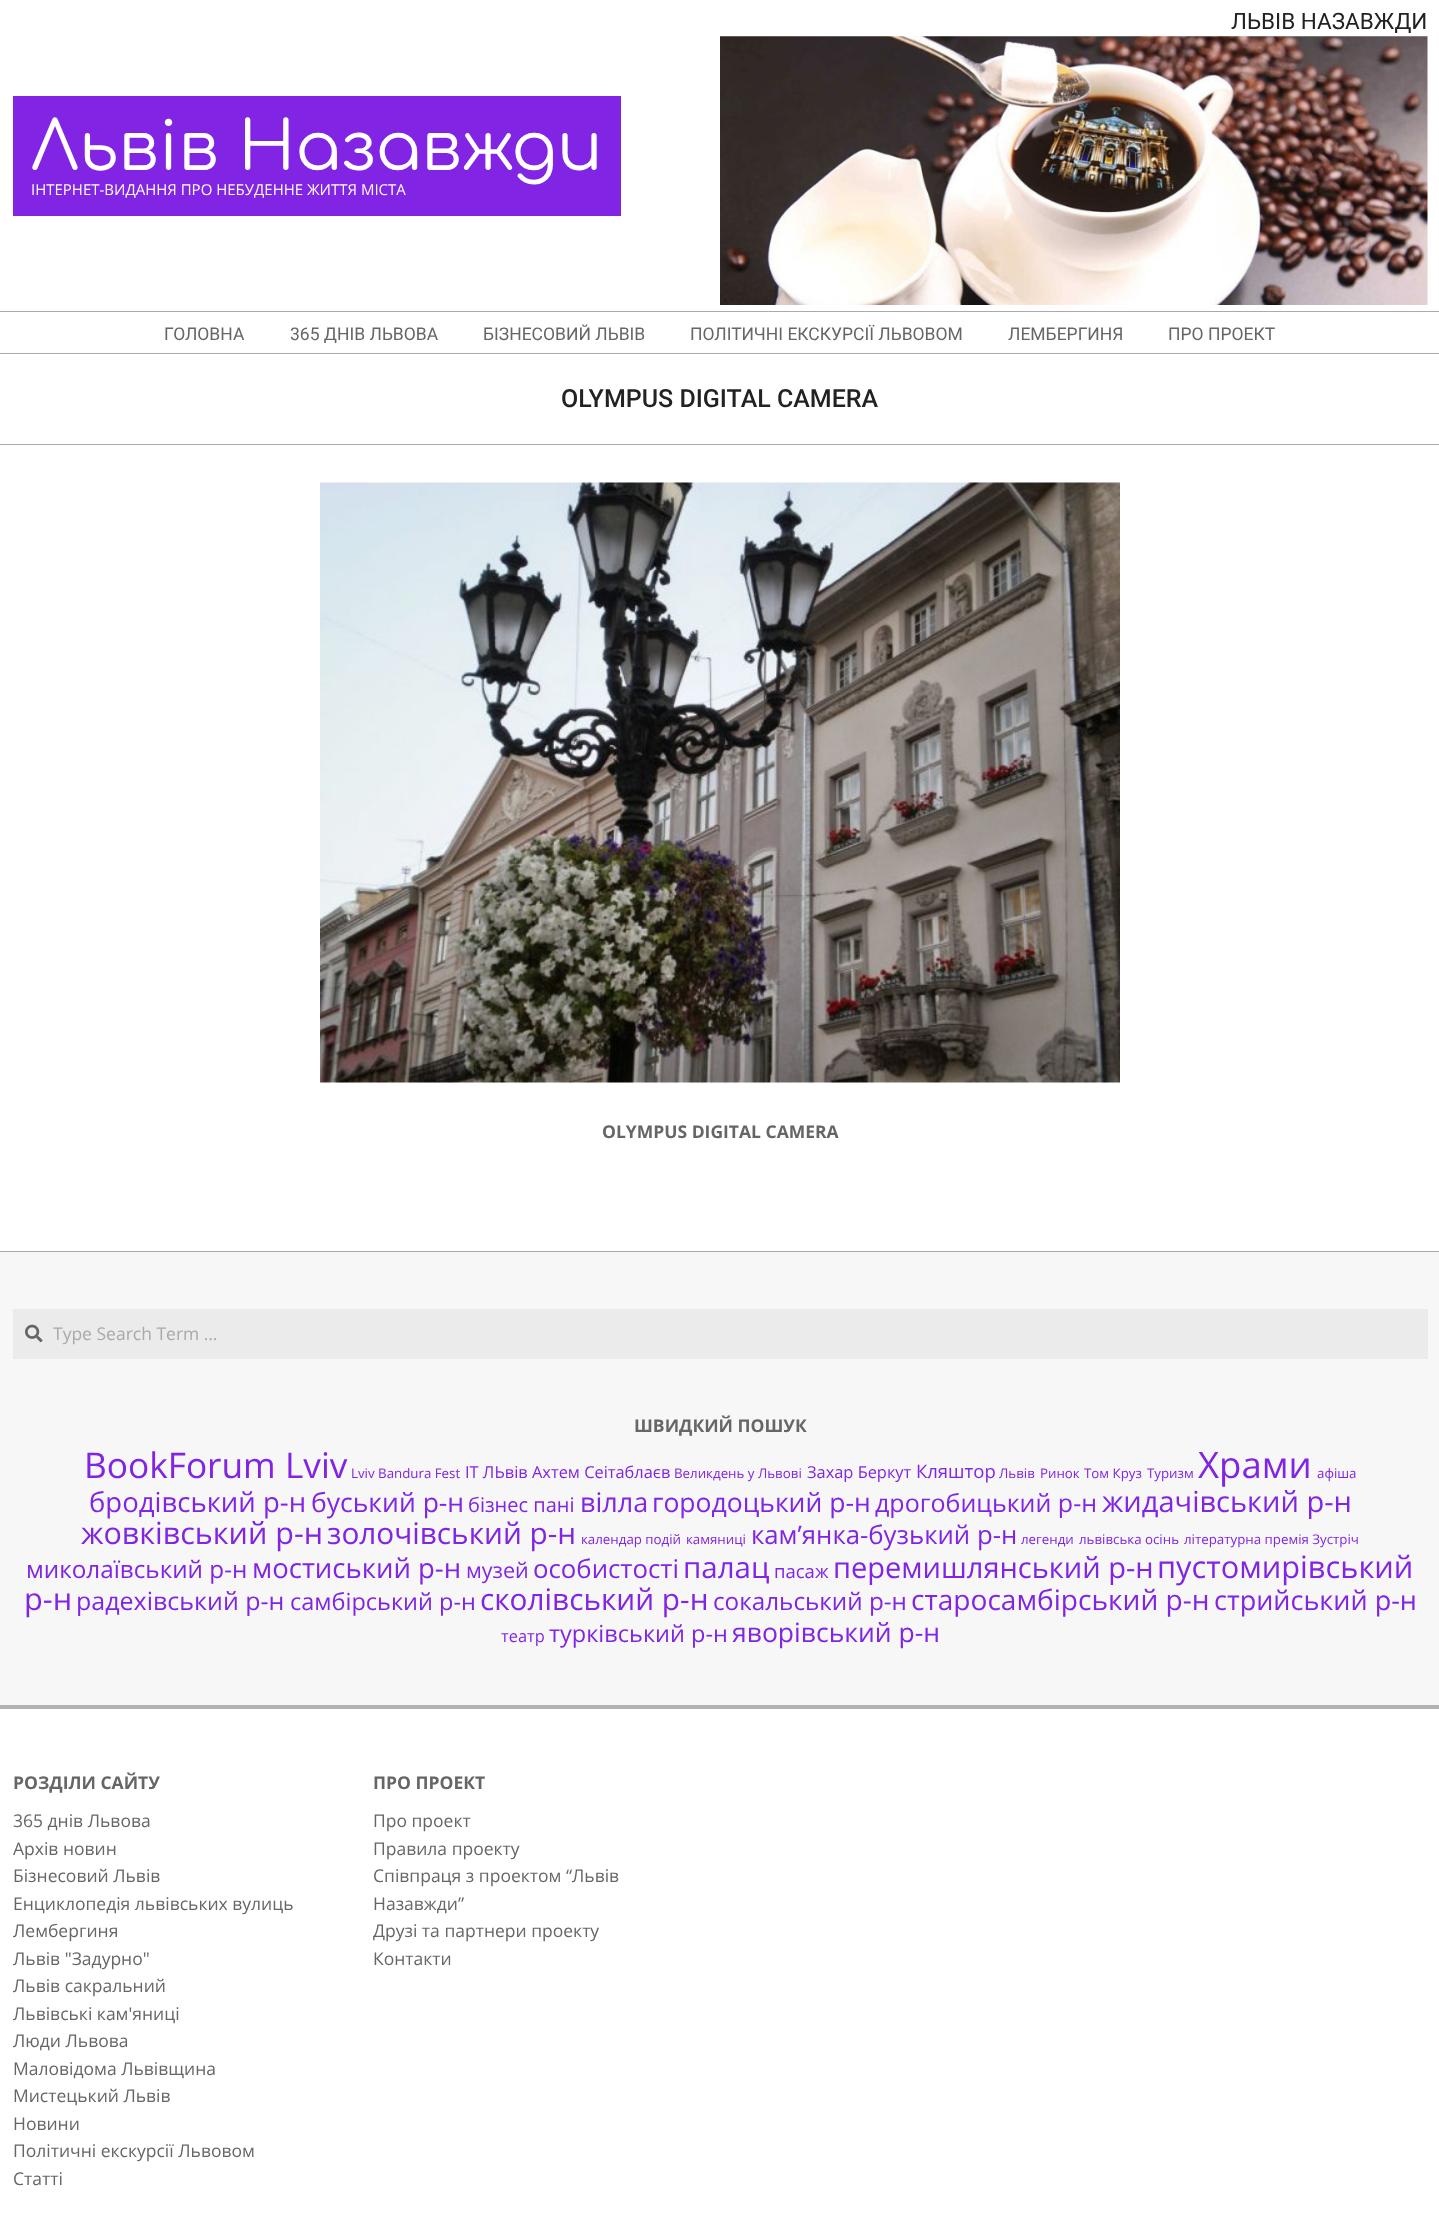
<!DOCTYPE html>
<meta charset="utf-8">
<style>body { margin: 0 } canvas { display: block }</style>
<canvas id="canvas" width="1439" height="2229"></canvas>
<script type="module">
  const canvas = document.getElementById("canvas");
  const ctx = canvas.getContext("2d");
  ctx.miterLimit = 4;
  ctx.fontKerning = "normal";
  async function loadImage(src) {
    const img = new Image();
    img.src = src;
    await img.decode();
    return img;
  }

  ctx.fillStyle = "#ffffff";
  ctx.fillRect(0, 0, 1439, 2229);
  ctx.fillStyle = "#aaaaaa";
  ctx.fillRect(0, 311, 1439, 1);
  ctx.font = "22.5px Roboto";
  ctx.fillStyle = "#222222";
  ctx.fillText("ЛЬВІВ НАЗАВЖДИ", 1231, 29);
  ctx.drawImage(await loadImage("img1.png"), 720, 36, 708, 269);
  ctx.fillStyle = "#8224e3";
  ctx.fillRect(13, 96, 608, 120);
  ctx.font = "67.5px Comfortaa";
  ctx.fillStyle = "#ffffff";
  ctx.fillText("Львів Назавжди", 31, 170);
  ctx.font = "15px Open Sans";
  ctx.fillText("ІНТЕРНЕТ-ВИДАННЯ ПРО НЕБУДЕННЕ ЖИТТЯ МІСТА", 31, 195);
  ctx.fillStyle = "#aaaaaa";
  ctx.fillRect(0, 353, 1439, 1);
  ctx.font = "17.5px Roboto";
  ctx.fillStyle = "#666666";
  ctx.fillText("ГОЛОВНА", 164, 340);
  ctx.fillText("365 ДНІВ ЛЬВОВА", 290, 340);
  ctx.fillText("БІЗНЕСОВИЙ ЛЬВІВ", 483, 340);
  ctx.fillText("ПОЛІТИЧНІ ЕКСКУРСІЇ ЛЬВОВОМ", 690, 340);
  ctx.fillText("ЛЕМБЕРГИНЯ", 1008, 340);
  ctx.fillText("ПРО ПРОЕКТ", 1168, 340);
  ctx.fillStyle = "#aaaaaa";
  ctx.fillRect(0, 444, 1439, 1);
  ctx.font = "500 25px Roboto";
  ctx.fillStyle = "#222222";
  ctx.fillText("OLYMPUS DIGITAL CAMERA", 561, 407);
  ctx.drawImage(await loadImage("img2.png"), 320, 482, 800, 601);
  ctx.font = "bold 17.5px Open Sans";
  ctx.fillStyle = "#666666";
  ctx.fillText("OLYMPUS DIGITAL CAMERA", 602, 1138);
  ctx.fillStyle = "#f7f7f7";
  ctx.fillRect(0, 1252, 1439, 453);
  ctx.fillStyle = "#aaaaaa";
  ctx.fillRect(0, 1251, 1439, 1);
  ctx.fillStyle = "#ebebeb";
  ctx.fillRect(13, 1309, 1415, 50);
  ctx.drawImage(await loadImage("img3.png"), 25, 1324, 18, 19);
  ctx.font = "17.5px Open Sans";
  ctx.fillStyle = "#a9a9a9";
  ctx.fillText("Type Search Term …", 53, 1340);
  ctx.font = "bold 17.5px Open Sans";
  ctx.fillStyle = "#666666";
  ctx.fillText("ШВИДКИЙ ПОШУК", 634, 1432);
  ctx.font = "35.25px Open Sans";
  ctx.fillStyle = "#8224e3";
  ctx.fillText("BookForum Lviv", 84, 1478);
  ctx.font = "13.3px Open Sans";
  ctx.fillText("Lviv Bandura Fest", 351, 1478);
  ctx.font = "16.4px Open Sans";
  ctx.fillText("ІТ ЛЬвів Ахтем Сеітаблаєв", 465, 1478);
  ctx.font = "13.3px Open Sans";
  ctx.fillText("Великдень у Львові", 674, 1478);
  ctx.font = "16.4px Open Sans";
  ctx.fillText("Захар Беркут", 807, 1478);
  ctx.font = "18.5px Open Sans";
  ctx.fillText("Кляштор", 916, 1478);
  ctx.font = "13.3px Open Sans";
  ctx.fillText("Львів", 999, 1478);
  ctx.fillText("Ринок", 1040, 1478);
  ctx.fillText("Том Круз", 1084, 1478);
  ctx.fillText("Туризм", 1147, 1478);
  ctx.font = "36.5px Open Sans";
  ctx.fillText("Храми", 1198, 1478);
  ctx.font = "13.3px Open Sans";
  ctx.fillText("афіша", 1317, 1478);
  ctx.font = "27.5px Open Sans";
  ctx.fillText("бродівський р-н", 89, 1512);
  ctx.font = "26.5px Open Sans";
  ctx.fillText("буський р-н", 311, 1512);
  ctx.font = "20px Open Sans";
  ctx.fillText("бізнес пані", 468, 1512);
  ctx.font = "27px Open Sans";
  ctx.fillText("вілла", 580, 1512);
  ctx.font = "26.5px Open Sans";
  ctx.fillText("городоцький р-н", 652, 1512);
  ctx.font = "25px Open Sans";
  ctx.fillText("дрогобицький р-н", 875, 1512);
  ctx.font = "29px Open Sans";
  ctx.fillText("жидачівський р-н", 1102, 1512);
  ctx.font = "30.5px Open Sans";
  ctx.fillText("жовківський р-н", 81, 1544);
  ctx.font = "29.75px Open Sans";
  ctx.fillText("золочівський р-н", 327, 1544);
  ctx.font = "13.3px Open Sans";
  ctx.fillText("календар подій", 581, 1544);
  ctx.fillText("камяниці", 686, 1544);
  ctx.font = "25.75px Open Sans";
  ctx.fillText("кам’янка-бузький р-н", 751, 1544);
  ctx.font = "13.3px Open Sans";
  ctx.fillText("легенди", 1021, 1544);
  ctx.fillText("львівська осінь", 1079, 1544);
  ctx.fillText("літературна премія Зустріч", 1184, 1544);
  ctx.font = "24.25px Open Sans";
  ctx.fillText("миколаївський р-н", 26, 1578);
  ctx.font = "27.5px Open Sans";
  ctx.fillText("мостиський р-н", 252, 1578);
  ctx.font = "21.5px Open Sans";
  ctx.fillText("музей", 466, 1578);
  ctx.font = "25.75px Open Sans";
  ctx.fillText("особистості", 533, 1578);
  ctx.font = "29.5px Open Sans";
  ctx.fillText("палац", 683, 1578);
  ctx.font = "18.5px Open Sans";
  ctx.fillText("пасаж", 774, 1578);
  ctx.font = "29px Open Sans";
  ctx.fillText("перемишлянський р-н", 833, 1578);
  ctx.font = "30.75px Open Sans";
  ctx.fillText("пустомирівський", 1157, 1578);
  ctx.fillText("р-н", 24, 1610);
  ctx.font = "25px Open Sans";
  ctx.fillText("радехівський р-н", 76, 1610);
  ctx.font = "23.5px Open Sans";
  ctx.fillText("самбірський р-н", 290, 1610);
  ctx.font = "29.75px Open Sans";
  ctx.fillText("сколівський р-н", 480, 1610);
  ctx.font = "24.25px Open Sans";
  ctx.fillText("сокальський р-н", 713, 1610);
  ctx.font = "28.1px Open Sans";
  ctx.fillText("старосамбірський р-н", 911, 1610);
  ctx.font = "27px Open Sans";
  ctx.fillText("стрийський р-н", 1214, 1610);
  ctx.font = "16.4px Open Sans";
  ctx.fillText("театр", 501, 1642);
  ctx.font = "23.5px Open Sans";
  ctx.fillText("турківський р-н", 549, 1642);
  ctx.font = "26.5px Open Sans";
  ctx.fillText("яворівський р-н", 732, 1642);
  ctx.fillStyle = "#b3b3b3";
  ctx.fillRect(0, 1705, 1439, 4);
  ctx.font = "bold 17.5px Open Sans";
  ctx.fillStyle = "#666666";
  ctx.fillText("РОЗДІЛИ САЙТУ", 13, 1789);
  ctx.font = "17.5px Open Sans";
  ctx.fillText("365 днів Львова", 13, 1827);
  ctx.fillText("Архів новин", 13, 1855);
  ctx.fillText("Бізнесовий Львів", 13, 1882);
  ctx.fillText("Енциклопедія львівських вулиць", 13, 1910);
  ctx.fillText("Лембергиня", 13, 1937);
  ctx.fillText("Львів \"Задурно\"", 13, 1965);
  ctx.fillText("Львів сакральний", 13, 1992);
  ctx.fillText("Львівські кам'яниці", 13, 2020);
  ctx.fillText("Люди Львова", 13, 2047);
  ctx.fillText("Маловідома Львівщина", 13, 2075);
  ctx.fillText("Мистецький Львів", 13, 2102);
  ctx.fillText("Новини", 13, 2130);
  ctx.fillText("Політичні екскурсії Львовом", 13, 2157);
  ctx.fillText("Статті", 13, 2185);
  ctx.font = "bold 17.5px Open Sans";
  ctx.fillText("ПРО ПРОЕКТ", 373, 1789);
  ctx.font = "17.5px Open Sans";
  ctx.fillText("Про проект", 373, 1827);
  ctx.fillText("Правила проекту", 373, 1855);
  ctx.fillText("Співпраця з проектом “Львів", 373, 1882);
  ctx.fillText("Назавжди”", 373, 1910);
  ctx.fillText("Друзі та партнери проекту", 373, 1937);
  ctx.fillText("Контакти", 373, 1965);
</script>
